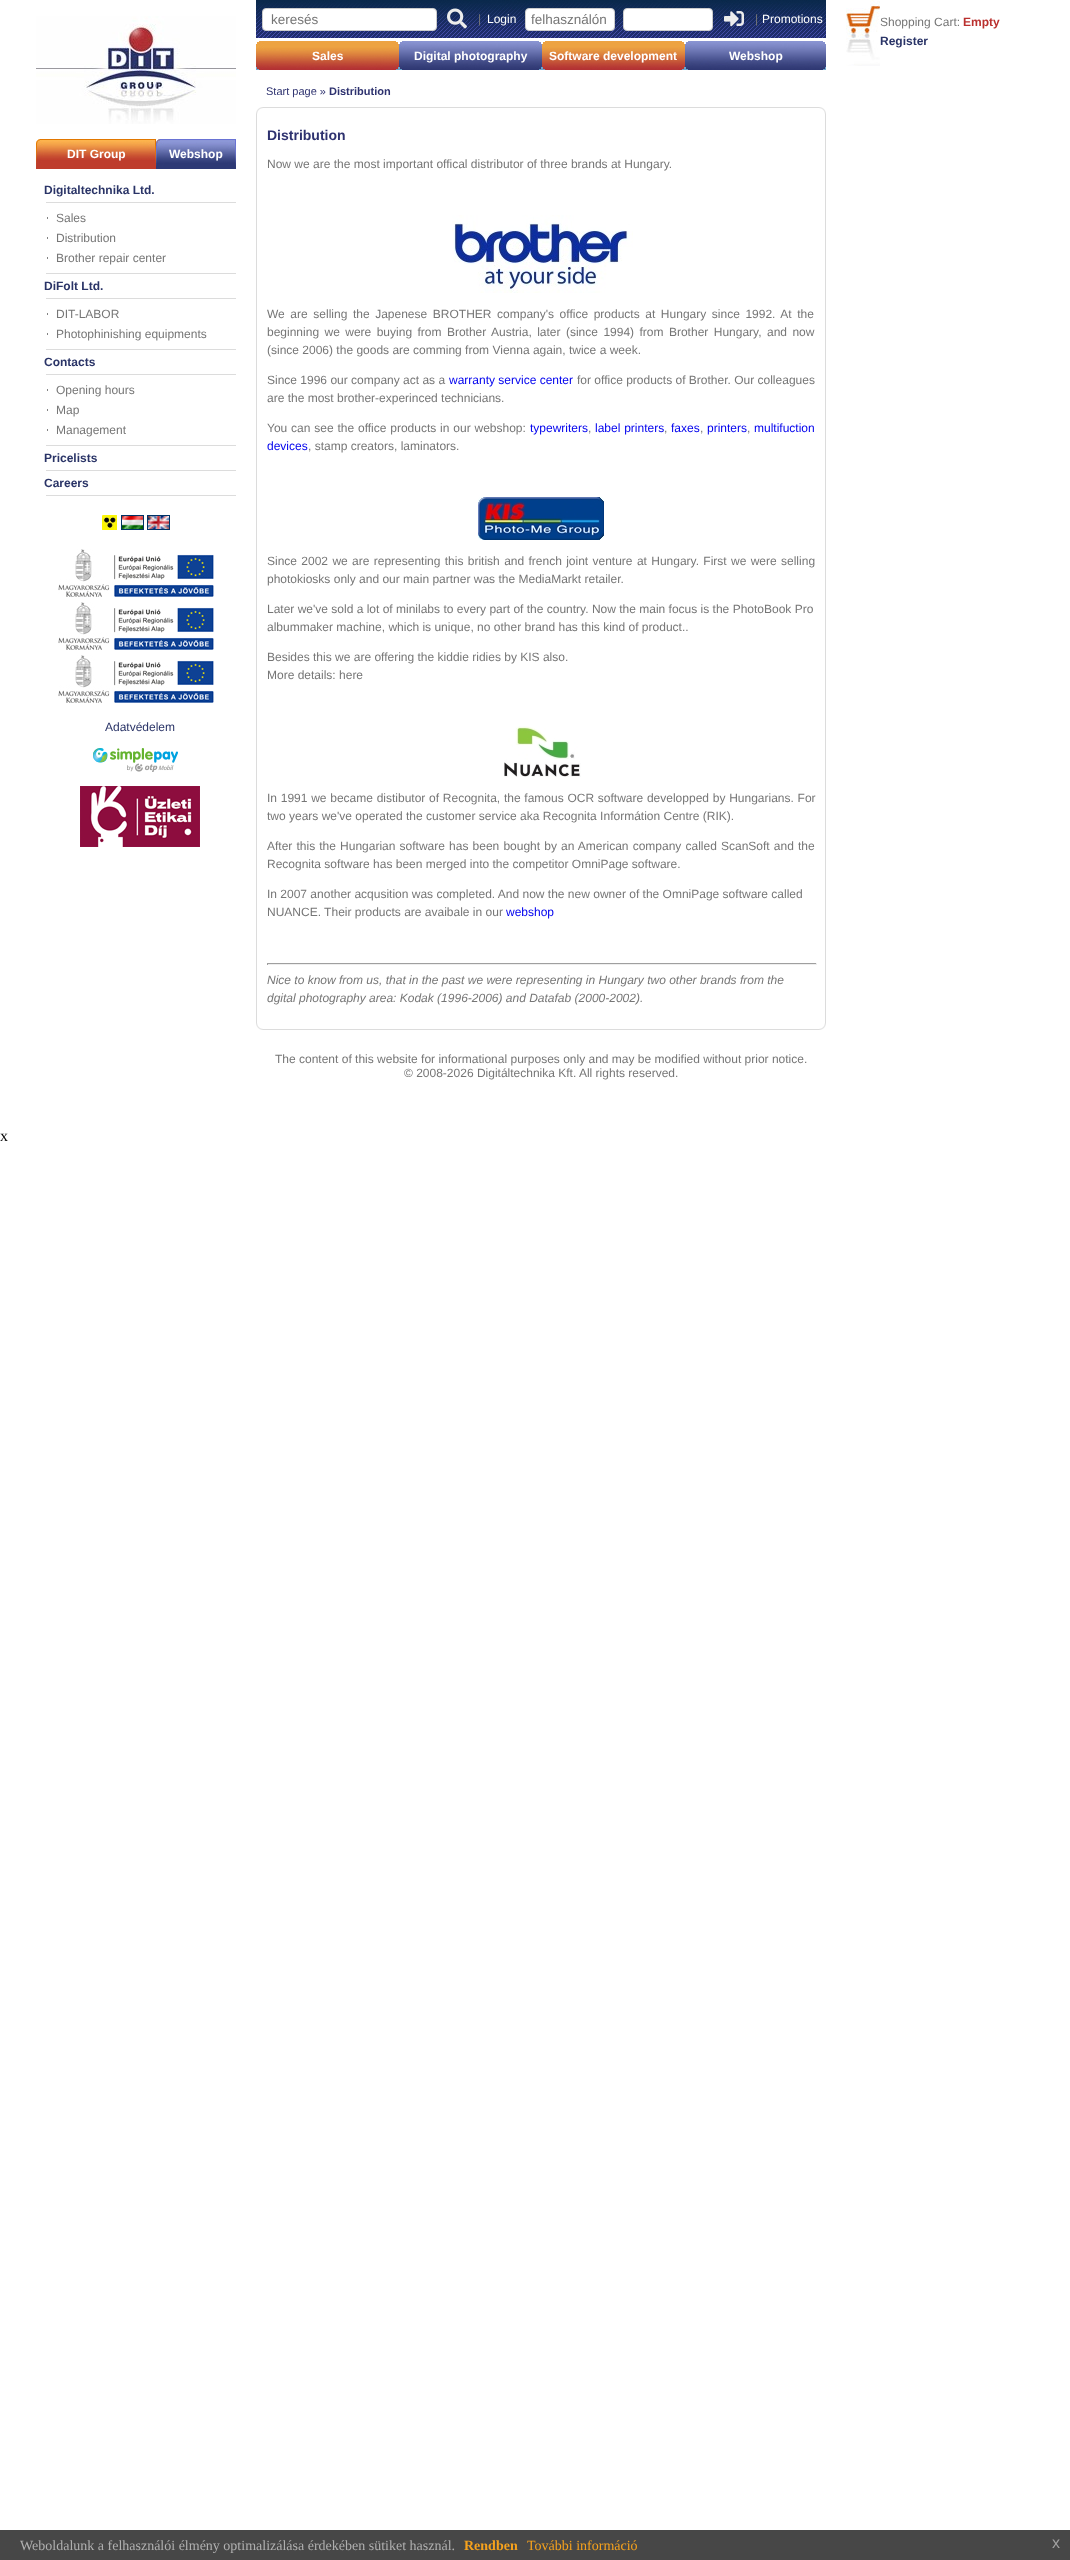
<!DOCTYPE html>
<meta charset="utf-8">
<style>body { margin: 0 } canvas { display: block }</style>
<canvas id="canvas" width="1070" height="2560"></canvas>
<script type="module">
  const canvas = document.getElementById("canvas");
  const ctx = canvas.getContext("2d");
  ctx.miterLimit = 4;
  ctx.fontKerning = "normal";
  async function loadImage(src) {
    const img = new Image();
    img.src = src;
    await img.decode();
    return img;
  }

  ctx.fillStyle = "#ffffff";
  ctx.fillRect(0, 0, 1070, 2560);
  ctx.drawImage(await loadImage("img1.png"), 256, 0, 570, 38);
  ctx.beginPath();
  ctx.roundRect(262.5, 8.5, 174, 22, 3.5);
  ctx.fill();
  ctx.strokeStyle = "#cccccc";
  ctx.stroke();
  ctx.font = "13.5px Liberation Sans";
  ctx.fillStyle = "#767676";
  ctx.fillText("keresés", 271, 24);
  ctx.drawImage(await loadImage("img2.png"), 447, 8, 20, 21);
  ctx.font = "12px Liberation Sans";
  ctx.fillText("|", 478, 23);
  ctx.fillStyle = "#ffffff";
  ctx.fillText("Login", 487, 23);
  ctx.beginPath();
  ctx.roundRect(525.5, 8.5, 89, 22, 3.5);
  ctx.fill();
  ctx.stroke();
  ctx.font = "13.5px Liberation Sans";
  ctx.fillStyle = "#767676";
  ctx.fillText("felhasználón", 531, 24);
  ctx.fillStyle = "#ffffff";
  ctx.beginPath();
  ctx.roundRect(623.5, 8.5, 89, 22, 3.5);
  ctx.fill();
  ctx.stroke();
  ctx.drawImage(await loadImage("img3.png"), 724, 11, 20, 16);
  ctx.font = "12px Liberation Sans";
  ctx.fillStyle = "#767676";
  ctx.fillText("|", 755, 23);
  ctx.fillStyle = "#ffffff";
  ctx.fillText("Promotions", 762, 23);
  ctx.drawImage(await loadImage("img4.png"), 256, 41, 143, 29);
  ctx.font = "bold 12px Liberation Sans";
  ctx.fillText("Sales", 312, 60);
  ctx.drawImage(await loadImage("img5.png"), 399, 41, 143, 29);
  ctx.fillText("Digital photography", 414, 60);
  ctx.drawImage(await loadImage("img4.png"), 542, 41, 143, 29);
  ctx.fillText("Software development", 549, 60);
  ctx.drawImage(await loadImage("img6.png"), 685, 41, 141, 29);
  ctx.fillText("Webshop", 729, 60);
  ctx.font = "11px Liberation Sans";
  ctx.fillStyle = "#2e326f";
  ctx.fillText("Start page »", 266, 95);
  ctx.font = "bold 11px Liberation Sans";
  ctx.fillText("Distribution", 329, 95);
  ctx.drawImage(await loadImage("img7.png"), 256, 107, 7, 7);
  ctx.fillStyle = "#dcdcdc";
  ctx.fillRect(263, 107, 556, 1);
  ctx.drawImage(await loadImage("img8.png"), 819, 107, 7, 7);
  ctx.fillRect(256, 114, 1, 909);
  ctx.font = "bold 14px Liberation Sans";
  ctx.fillStyle = "#2e326f";
  ctx.fillText("Distribution", 267, 140);
  ctx.font = "12px Liberation Sans";
  ctx.fillStyle = "#767676";
  ctx.fillText("Now we are the most important offical distributor of three brands at Hungary.", 267, 168);
  ctx.drawImage(await loadImage("img9.png"), 452, 215, 181, 78);
  ctx.wordSpacing = "2.25px";
  ctx.fillText("We are selling the Japenese BROTHER company's office products at Hungary since 1992. At the", 267, 318);
  ctx.wordSpacing = "2.1px";
  ctx.fillText("beginning we were buying from Brother Austria, later (since 1994) from Brother Hungary, and now", 267, 336);
  ctx.wordSpacing = "0px";
  ctx.fillText("(since 2006) the goods are comming from Vienna again, twice a week.", 267, 354);
  ctx.fillText("Since 1996 our company act as a", 267, 384);
  ctx.fillStyle = "#0000ee";
  ctx.fillText("warranty service center", 449, 384);
  ctx.fillStyle = "#767676";
  ctx.fillText("for office products of Brother. Our colleagues", 577, 384);
  ctx.fillText("are the most brother-experinced technicians.", 267, 402);
  ctx.wordSpacing = "0.5px";
  ctx.fillText("You can see the office products in our webshop:", 267, 432);
  ctx.wordSpacing = "0px";
  ctx.fillStyle = "#0000ee";
  ctx.fillText("typewriters", 530, 432);
  ctx.fillStyle = "#767676";
  ctx.fillText(",", 588, 432);
  ctx.wordSpacing = "0.5px";
  ctx.fillStyle = "#0000ee";
  ctx.fillText("label printers", 595, 432);
  ctx.wordSpacing = "0px";
  ctx.fillStyle = "#767676";
  ctx.fillText(",", 664, 432);
  ctx.fillStyle = "#0000ee";
  ctx.fillText("faxes", 671, 432);
  ctx.fillStyle = "#767676";
  ctx.fillText(",", 700, 432);
  ctx.fillStyle = "#0000ee";
  ctx.fillText("printers", 707, 432);
  ctx.fillStyle = "#767676";
  ctx.fillText(",", 747, 432);
  ctx.fillStyle = "#0000ee";
  ctx.fillText("multifuction", 754, 432);
  ctx.fillText("devices", 267, 450);
  ctx.fillStyle = "#767676";
  ctx.fillText(", stamp creators, laminators.", 308, 450);
  ctx.drawImage(await loadImage("img10.png"), 478, 497, 126, 43);
  ctx.wordSpacing = "1px";
  ctx.fillText("Since 2002 we are representing this british and french joint venture at Hungary. First we were selling", 267, 565);
  ctx.wordSpacing = "0px";
  ctx.fillText("photokiosks only and our main partner was the MediaMarkt retailer.", 267, 583);
  ctx.fillText("Later we've sold a lot of minilabs to every part of the country. Now the main focus is the PhotoBook Pro", 267, 613);
  ctx.fillText("albummaker machine, which is unique, no other brand has this kind of product..", 267, 631);
  ctx.fillText("Besides this we are offering the kiddie ridies by KIS also.", 267, 661);
  ctx.fillText("More details: here", 267, 679);
  ctx.drawImage(await loadImage("img11.png"), 504, 726, 77, 51);
  ctx.wordSpacing = "0.4px";
  ctx.fillText("In 1991 we became distibutor of Recognita, the famous OCR software developped by Hungarians. For", 267, 802);
  ctx.wordSpacing = "0px";
  ctx.fillText("two years we've operated the customer service aka Recognita Informátion Centre (RIK).", 267, 820);
  ctx.wordSpacing = "0.8px";
  ctx.fillText("After this the Hungarian software has been bought by an American company called ScanSoft and the", 267, 850);
  ctx.wordSpacing = "0px";
  ctx.fillText("Recognita software has been merged into the competitor OmniPage software.", 267, 868);
  ctx.fillText("In 2007 another acqusition was completed. And now the new owner of the OmniPage software called", 267, 898);
  ctx.fillText("NUANCE. Their products are avaibale in our", 267, 916);
  ctx.fillStyle = "#0000ee";
  ctx.fillText("webshop", 506, 916);
  ctx.fillStyle = "#9f9f9f";
  ctx.fillRect(267, 963, 550, 1);
  ctx.fillStyle = "#eeeeee";
  ctx.fillRect(816, 963, 1, 2);
  ctx.fillRect(267, 964, 550, 1);
  ctx.fillStyle = "#9f9f9f";
  ctx.fillRect(267, 963, 1, 2);
  ctx.font = "italic 12px Liberation Sans";
  ctx.fillStyle = "#767676";
  ctx.fillText("Nice to know from us, that in the past we were representing in Hungary two other brands from the", 267, 984);
  ctx.fillText("dgital photography area: Kodak (1996-2006) and Datafab (2000-2002).", 267, 1002);
  ctx.fillStyle = "#dcdcdc";
  ctx.fillRect(825, 114, 1, 909);
  ctx.drawImage(await loadImage("img12.png"), 256, 1023, 7, 7);
  ctx.fillRect(263, 1029, 556, 1);
  ctx.drawImage(await loadImage("img13.png"), 819, 1023, 7, 7);
  ctx.font = "12px Liberation Sans";
  ctx.fillStyle = "#767676";
  ctx.fillText("The content of this website for informational purposes only and may be modified without prior notice.", 275, 1063);
  ctx.fillText("© 2008-2026 Digitáltechnika Kft. All rights reserved.", 404, 1077);
  ctx.drawImage(await loadImage("img14.png"), 846, 0, 34, 66);
  ctx.fillText("Shopping Cart:", 880, 26);
  ctx.font = "bold 12px Liberation Sans";
  ctx.fillStyle = "#ba302e";
  ctx.fillText("Empty", 963, 26);
  ctx.fillStyle = "#2a3467";
  ctx.fillText("Register", 880, 45);
  ctx.drawImage(await loadImage("img15.png"), 36, 16, 200, 108);
  ctx.drawImage(await loadImage("img16.png"), 36, 139, 120, 30);
  ctx.fillStyle = "#ffffff";
  ctx.fillText("DIT Group", 67, 158);
  ctx.drawImage(await loadImage("img17.png"), 156, 139, 80, 30);
  ctx.fillText("Webshop", 169, 158);
  ctx.fillStyle = "#2a3467";
  ctx.fillText("Digitaltechnika Ltd.", 44, 194);
  ctx.fillStyle = "#dcdcdc";
  ctx.fillRect(46, 202, 190, 1);
  ctx.fillStyle = "#828282";
  ctx.fillRect(47, 217, 1, 2);
  ctx.font = "12px Liberation Sans";
  ctx.fillStyle = "#767676";
  ctx.fillText("Sales", 56, 222);
  ctx.fillStyle = "#828282";
  ctx.fillRect(47, 237, 1, 2);
  ctx.fillStyle = "#767676";
  ctx.fillText("Distribution", 56, 242);
  ctx.fillStyle = "#828282";
  ctx.fillRect(47, 257, 1, 2);
  ctx.fillStyle = "#767676";
  ctx.fillText("Brother repair center", 56, 262);
  ctx.fillStyle = "#dcdcdc";
  ctx.fillRect(46, 273, 190, 1);
  ctx.font = "bold 12px Liberation Sans";
  ctx.fillStyle = "#2a3467";
  ctx.fillText("DiFolt Ltd.", 44, 290);
  ctx.fillStyle = "#dcdcdc";
  ctx.fillRect(46, 298, 190, 1);
  ctx.fillStyle = "#828282";
  ctx.fillRect(47, 313, 1, 2);
  ctx.font = "12px Liberation Sans";
  ctx.fillStyle = "#767676";
  ctx.fillText("DIT-LABOR", 56, 318);
  ctx.fillStyle = "#828282";
  ctx.fillRect(47, 333, 1, 2);
  ctx.fillStyle = "#767676";
  ctx.fillText("Photophinishing equipments", 56, 338);
  ctx.fillStyle = "#dcdcdc";
  ctx.fillRect(46, 349, 190, 1);
  ctx.font = "bold 12px Liberation Sans";
  ctx.fillStyle = "#2a3467";
  ctx.fillText("Contacts", 44, 366);
  ctx.fillStyle = "#dcdcdc";
  ctx.fillRect(46, 374, 190, 1);
  ctx.fillStyle = "#828282";
  ctx.fillRect(47, 389, 1, 2);
  ctx.font = "12px Liberation Sans";
  ctx.fillStyle = "#767676";
  ctx.fillText("Opening hours", 56, 394);
  ctx.fillStyle = "#828282";
  ctx.fillRect(47, 409, 1, 2);
  ctx.fillStyle = "#767676";
  ctx.fillText("Map", 56, 414);
  ctx.fillStyle = "#828282";
  ctx.fillRect(47, 429, 1, 2);
  ctx.fillStyle = "#767676";
  ctx.fillText("Management", 56, 434);
  ctx.fillStyle = "#dcdcdc";
  ctx.fillRect(46, 445, 190, 1);
  ctx.font = "bold 12px Liberation Sans";
  ctx.fillStyle = "#2a3467";
  ctx.fillText("Pricelists", 44, 462);
  ctx.fillStyle = "#dcdcdc";
  ctx.fillRect(46, 470, 190, 1);
  ctx.fillStyle = "#2a3467";
  ctx.fillText("Careers", 44, 487);
  ctx.fillStyle = "#dcdcdc";
  ctx.fillRect(46, 495, 190, 1);
  ctx.drawImage(await loadImage("img18.png"), 102, 515, 15, 15);
  ctx.drawImage(await loadImage("img19.png"), 121, 515, 23, 15);
  ctx.drawImage(await loadImage("img20.png"), 147, 515, 23, 15);
  ctx.drawImage(await loadImage("img21.png"), 58, 549, 156, 48);
  ctx.drawImage(await loadImage("img21.png"), 58, 602, 156, 48);
  ctx.drawImage(await loadImage("img21.png"), 58, 655, 156, 48);
  ctx.font = "12px Liberation Sans";
  ctx.fillStyle = "#2a3467";
  ctx.fillText("Adatvédelem", 105, 731);
  ctx.drawImage(await loadImage("img22.png"), 93, 748, 85, 24);
  ctx.drawImage(await loadImage("img23.png"), 80, 786, 120, 61);
  ctx.font = "16px Liberation Serif";
  ctx.fillStyle = "#000000";
  ctx.fillText("x", 0, 1141);
  ctx.fillStyle = "#474747";
  ctx.fillRect(0, 2530, 1070, 30);
  ctx.font = "14px Liberation Serif";
  ctx.fillStyle = "#b0b0b0";
  ctx.fillText("Weboldalunk a felhasználói élmény optimalizálása érdekében sütiket használ.", 20, 2550);
  ctx.font = "bold 14px Liberation Serif";
  ctx.fillStyle = "#f6a21d";
  ctx.fillText("Rendben", 464, 2550);
  ctx.font = "14px Liberation Serif";
  ctx.fillText("További információ", 527, 2550);
  ctx.font = "16px Liberation Sans";
  ctx.fillStyle = "#a2a2a2";
  ctx.fillText("x", 1052, 2548);
</script>
